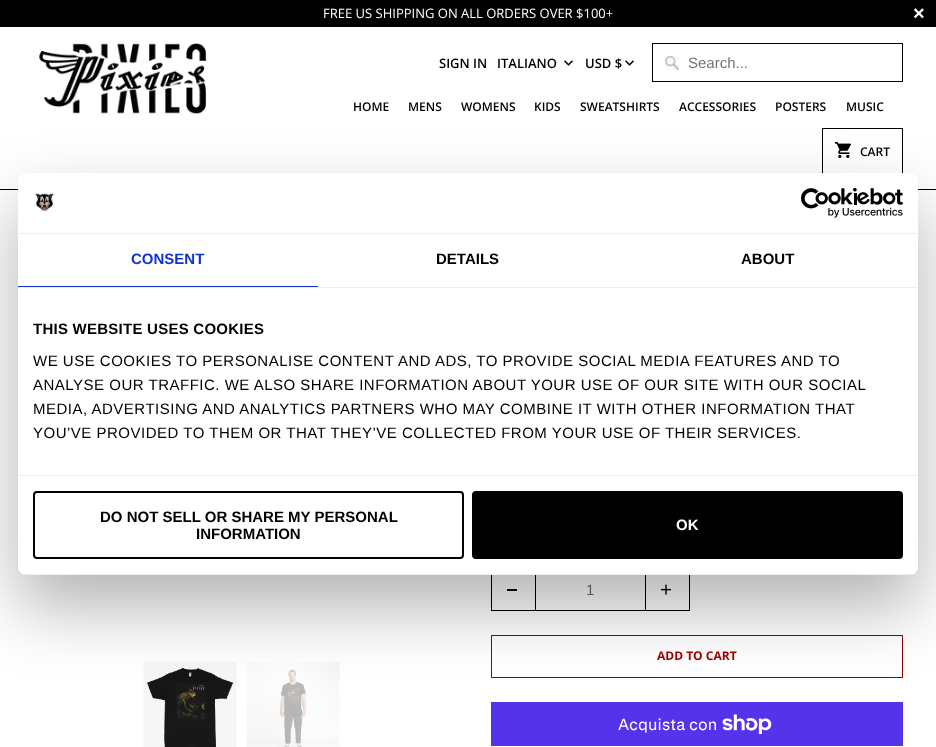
<!DOCTYPE html>
<meta charset="utf-8">
<style>body { margin: 0 } canvas { display: block }</style>
<canvas id="canvas" width="936" height="747"></canvas>
<script type="module">
  const canvas = document.getElementById("canvas");
  const ctx = canvas.getContext("2d");
  ctx.miterLimit = 4;
  ctx.fontKerning = "normal";
  async function loadImage(src) {
    const img = new Image();
    img.src = src;
    await img.decode();
    return img;
  }

  ctx.fillStyle = "#ffffff";
  ctx.fillRect(0, 0, 936, 747);
  ctx.fillStyle = "#000000";
  ctx.fillRect(0, 0, 936, 27);
  ctx.font = "13px Open Sans";
  ctx.fillStyle = "#ffffff";
  ctx.fillText("FREE US SHIPPING ON ALL ORDERS OVER $100+", 323, 18);
  ctx.font = "bold 20px Liberation Sans";
  ctx.fillText("×", 913, 20);
  ctx.fillStyle = "#000000";
  ctx.fillRect(0, 189, 936, 1);
  ctx.drawImage(await loadImage("img1.png"), 39, 43, 168, 71);
  ctx.font = "600 13px Open Sans";
  ctx.fillText("SIGN IN", 439, 68);
  ctx.fillText("ITALIANO", 497, 68);
  ctx.drawImage(await loadImage("img2.png"), 564, 60, 9, 6);
  ctx.fillText("USD $", 585, 68);
  ctx.drawImage(await loadImage("img2.png"), 625, 60, 9, 6);
  ctx.drawImage(await loadImage("img3.png"), 665, 56, 14, 14);
  ctx.strokeStyle = "#000000";
  ctx.strokeRect(652.5, 43.5, 250, 38);
  ctx.font = "15px Liberation Sans";
  ctx.fillStyle = "#757575";
  ctx.fillText("Search...", 688, 68);
  ctx.font = "600 12px Open Sans";
  ctx.fillStyle = "#000000";
  ctx.fillText("HOME", 353, 111);
  ctx.fillText("MENS", 408, 111);
  ctx.fillText("WOMENS", 461, 111);
  ctx.fillText("KIDS", 534, 111);
  ctx.fillText("SWEATSHIRTS", 580, 111);
  ctx.fillText("ACCESSORIES", 679, 111);
  ctx.fillText("POSTERS", 775, 111);
  ctx.fillText("MUSIC", 846, 111);
  ctx.strokeRect(822.5, 128.5, 80, 45);
  ctx.drawImage(await loadImage("img4.png"), 835, 142, 16, 16);
  ctx.fillText("CART", 860, 156);
  ctx.drawImage(await loadImage("img7.png"), 143, 662, 94, 85);
  ctx.drawImage(await loadImage("img8.png"), 246, 662, 94, 85);
  ctx.fillRect(491, 610, 44, 1);
  ctx.fillRect(491, 567, 1, 44);
  ctx.fillRect(507, 589, 10, 2);
  ctx.strokeRect(535.5, 567.5, 110, 43);
  ctx.fillRect(689, 567, 1, 44);
  ctx.fillRect(646, 610, 44, 1);
  ctx.drawImage(await loadImage("img9.png"), 661, 584, 10, 11);
  ctx.strokeStyle = "#990000";
  ctx.strokeRect(491.5, 635.5, 411, 42);
  ctx.fillStyle = "#5433eb";
  ctx.fillRect(491, 702, 412, 44);
  ctx.fillStyle = "rgba(0, 0, 0, 0.3)";
  ctx.filter = "blur(34px)";
  ctx.beginPath();
  ctx.roundRect(18, 205, 900, 402, 8);
  ctx.fill();
  ctx.filter = "none";
  ctx.fillStyle = "#ffffff";
  ctx.beginPath();
  ctx.roundRect(18, 173, 900, 402, 8);
  ctx.fill();
  ctx.fillStyle = "#eeeeee";
  ctx.fillRect(18, 233, 900, 1);
  ctx.drawImage(await loadImage("img5.png"), 34, 193, 21, 19);
  ctx.drawImage(await loadImage("img6.png"), 801, 188, 102, 30);
  ctx.fillRect(18, 287, 900, 1);
  ctx.fillStyle = "#1032cf";
  ctx.fillRect(18, 286, 300, 1);
  ctx.font = "bold 15px Liberation Sans";
  ctx.fillText("CONSENT", 131, 264);
  ctx.fillStyle = "#000000";
  ctx.fillText("DETAILS", 436, 264);
  ctx.fillText("ABOUT", 741, 264);
  ctx.fillStyle = "#eeeeee";
  ctx.fillRect(18, 475, 900, 1);
  ctx.letterSpacing = "0.25px";
  ctx.fillStyle = "#000000";
  ctx.fillText("THIS WEBSITE USES COOKIES", 33, 334);
  ctx.letterSpacing = "0.5px";
  ctx.font = "15px Liberation Sans";
  ctx.fillText("WE USE COOKIES TO PERSONALISE CONTENT AND ADS, TO PROVIDE SOCIAL MEDIA FEATURES AND TO", 33, 366);
  ctx.fillText("ANALYSE OUR TRAFFIC. WE ALSO SHARE INFORMATION ABOUT YOUR USE OF OUR SITE WITH OUR SOCIAL", 33, 390);
  ctx.fillText("MEDIA, ADVERTISING AND ANALYTICS PARTNERS WHO MAY COMBINE IT WITH OTHER INFORMATION THAT", 33, 414);
  ctx.fillText("YOU’VE PROVIDED TO THEM OR THAT THEY’VE COLLECTED FROM YOUR USE OF THEIR SERVICES.", 33, 438);
  ctx.save();
  ctx.beginPath();
  ctx.roundRect(18, 173, 900, 402, 8);
  ctx.clip();
  ctx.fillStyle = "#eeeeee";
  ctx.fillRect(18, 574, 900, 1);
  ctx.restore();
  ctx.beginPath();
  ctx.roundRect(34, 492, 429, 66, 3);
  ctx.strokeStyle = "#000000";
  ctx.lineWidth = 2;
  ctx.stroke();
  ctx.letterSpacing = "0px";
  ctx.font = "bold 15px Liberation Sans";
  ctx.fillText("DO NOT SELL OR SHARE MY PERSONAL", 100, 522);
  ctx.fillText("INFORMATION", 196, 539);
  ctx.beginPath();
  ctx.roundRect(473, 492, 429, 66, 3);
  ctx.fill();
  ctx.stroke();
  ctx.fillStyle = "#ffffff";
  ctx.fillText("OK", 676, 530);
  ctx.font = "15px Liberation Sans";
  ctx.fillStyle = "#51595d";
  ctx.fillText("1", 586, 595);
  ctx.font = "bold 12px Open Sans";
  ctx.fillStyle = "#990000";
  ctx.fillText("ADD TO CART", 657, 660);
  ctx.font = "16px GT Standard";
  ctx.fillStyle = "#ffffff";
  ctx.fillText("Acquista con", 618, 730);
  ctx.drawImage(await loadImage("img10.png"), 722, 714, 50, 20);
</script>
